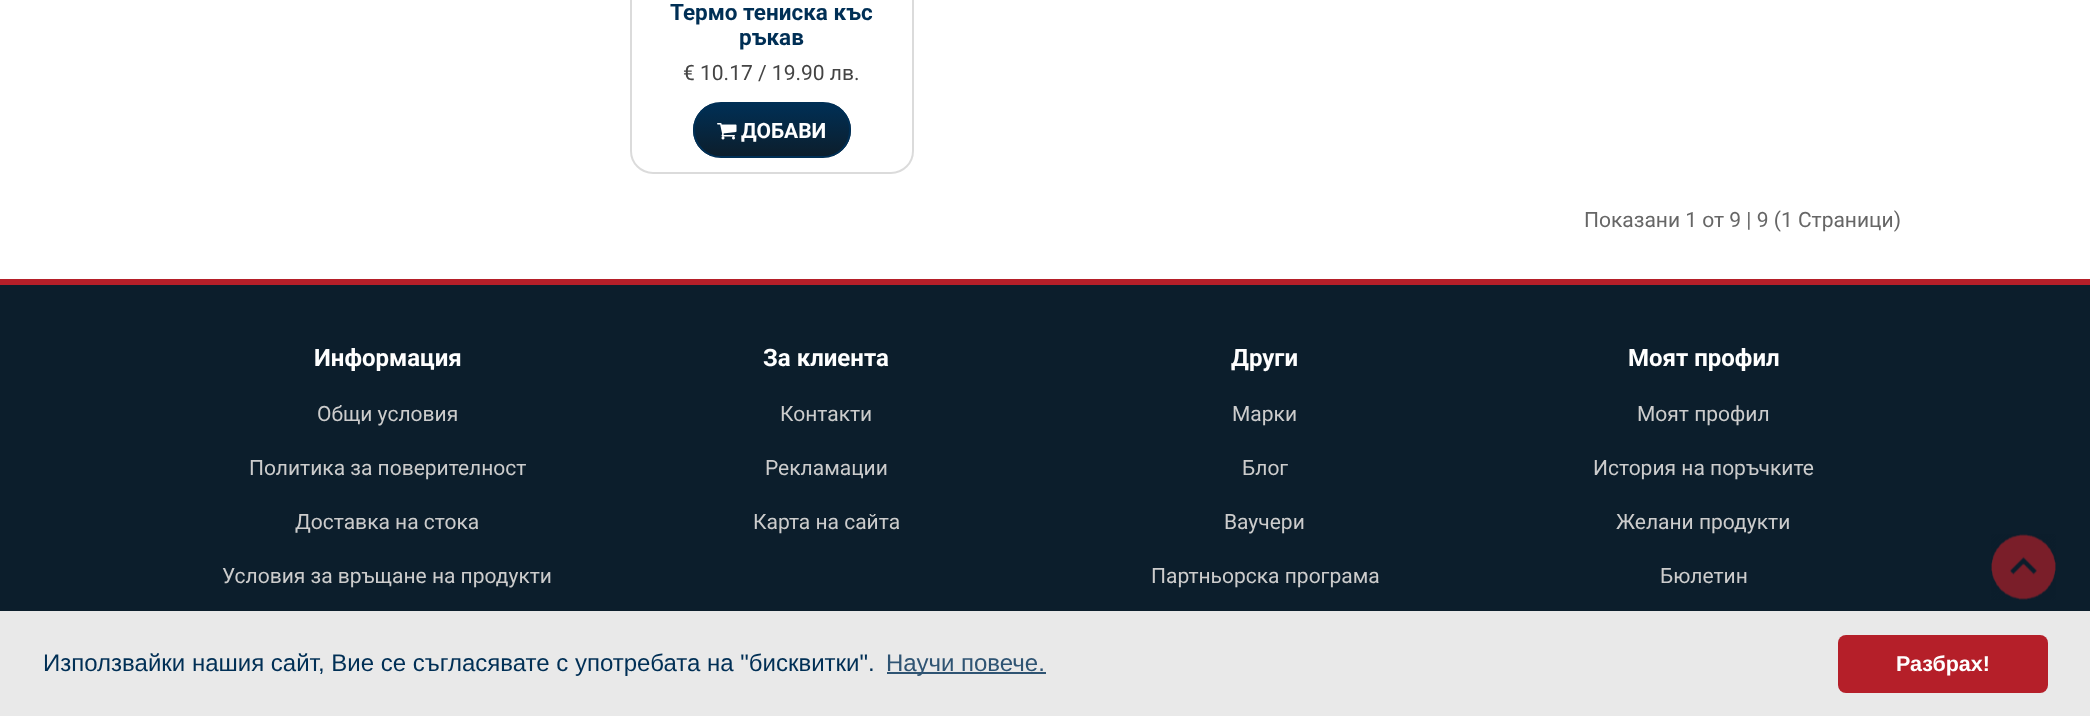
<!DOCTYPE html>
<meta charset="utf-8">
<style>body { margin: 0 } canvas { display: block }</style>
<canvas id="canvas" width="2090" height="716"></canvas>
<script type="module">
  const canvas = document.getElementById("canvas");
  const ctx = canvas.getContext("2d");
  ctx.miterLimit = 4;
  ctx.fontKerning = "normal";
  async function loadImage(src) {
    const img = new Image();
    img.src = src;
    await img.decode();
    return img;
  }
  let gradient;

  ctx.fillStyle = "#ffffff";
  ctx.fillRect(0, 0, 2090, 716);
  ctx.beginPath();
  ctx.roundRect(631, -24, 282, 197, 22);
  ctx.strokeStyle = "rgba(0, 0, 0, 0.14)";
  ctx.lineWidth = 2;
  ctx.stroke();
  ctx.font = "bold 22.5px Roboto";
  ctx.fillStyle = "#002f55";
  ctx.fillText("Термо тениска къс", 670, 20);
  ctx.fillText("ръкав", 739, 45);
  ctx.font = "21px Roboto";
  ctx.fillStyle = "#444444";
  ctx.fillText("€ 10.17 / 19.90 лв.", 683, 80);
  ctx.save();
  ctx.beginPath();
  ctx.roundRect(693, 102, 158, 56, 28);
  ctx.clip();
  gradient = ctx.createLinearGradient(772, 104, 772, 156);
  gradient.addColorStop(0, "#002f55");
  gradient.addColorStop(1, "#0c1e2c");
  ctx.fillStyle = gradient;
  ctx.fillRect(693, 104, 158, 52);
  ctx.restore();
  ctx.beginPath();
  ctx.roundRect(694, 103, 156, 54, 27);
  ctx.strokeStyle = "#002f55";
  ctx.stroke();
  ctx.drawImage(await loadImage("img1.png"), 717, 123, 20, 17);
  ctx.font = "bold 21px Roboto";
  ctx.fillStyle = "#ffffff";
  ctx.fillText("ДОБАВИ", 741, 138);
  ctx.font = "21px Roboto";
  ctx.fillStyle = "#666666";
  ctx.fillText("Показани 1 от 9 | 9 (1 Страници)", 1584, 227);
  ctx.fillStyle = "#0c1e2c";
  ctx.fillRect(0, 285, 2090, 326);
  ctx.fillStyle = "#b51f29";
  ctx.fillRect(0, 279, 2090, 6);
  ctx.font = "bold 24px Roboto";
  ctx.fillStyle = "#ffffff";
  ctx.fillText("Информация", 314, 366);
  ctx.font = "21px Roboto";
  ctx.fillStyle = "#cccccc";
  ctx.fillText("Общи условия", 317, 421);
  ctx.fillText("Политика за поверителност", 249, 475);
  ctx.fillText("Доставка на стока", 295, 529);
  ctx.fillText("Условия за връщане на продукти", 222, 583);
  ctx.font = "bold 24px Roboto";
  ctx.fillStyle = "#ffffff";
  ctx.fillText("За клиента", 763, 366);
  ctx.font = "21px Roboto";
  ctx.fillStyle = "#cccccc";
  ctx.fillText("Контакти", 780, 421);
  ctx.fillText("Рекламации", 765, 475);
  ctx.fillText("Карта на сайта", 753, 529);
  ctx.font = "bold 24px Roboto";
  ctx.fillStyle = "#ffffff";
  ctx.fillText("Други", 1231, 366);
  ctx.font = "21px Roboto";
  ctx.fillStyle = "#cccccc";
  ctx.fillText("Марки", 1232, 421);
  ctx.fillText("Блог", 1242, 475);
  ctx.fillText("Ваучери", 1224, 529);
  ctx.fillText("Партньорска програма", 1151, 583);
  ctx.font = "bold 24px Roboto";
  ctx.fillStyle = "#ffffff";
  ctx.fillText("Моят профил", 1628, 366);
  ctx.font = "21px Roboto";
  ctx.fillStyle = "#cccccc";
  ctx.fillText("Моят профил", 1637, 421);
  ctx.fillText("История на поръчките", 1593, 475);
  ctx.fillText("Желани продукти", 1616, 529);
  ctx.fillText("Бюлетин", 1660, 583);
  ctx.drawImage(await loadImage("img2.png"), 1991, 534, 65, 66);
  ctx.fillStyle = "#e9e9e9";
  ctx.fillRect(0, 611, 2090, 105);
  ctx.font = "24px Liberation Sans";
  ctx.fillStyle = "#002f55";
  ctx.fillText("Използвайки нашия сайт, Вие се съгласявате с употребата на \"бисквитки\".", 43, 671);
  ctx.fillStyle = "#2f5473";
  ctx.fillRect(887, 672, 159, 2);
  ctx.fillText("Научи повече.", 886, 671);
  ctx.fillStyle = "#b51f29";
  ctx.beginPath();
  ctx.roundRect(1838, 635, 210, 58, 8);
  ctx.fill();
  ctx.font = "bold 21.5px Liberation Sans";
  ctx.fillStyle = "#ffffff";
  ctx.fillText("Разбрах!", 1896, 671);
</script>
